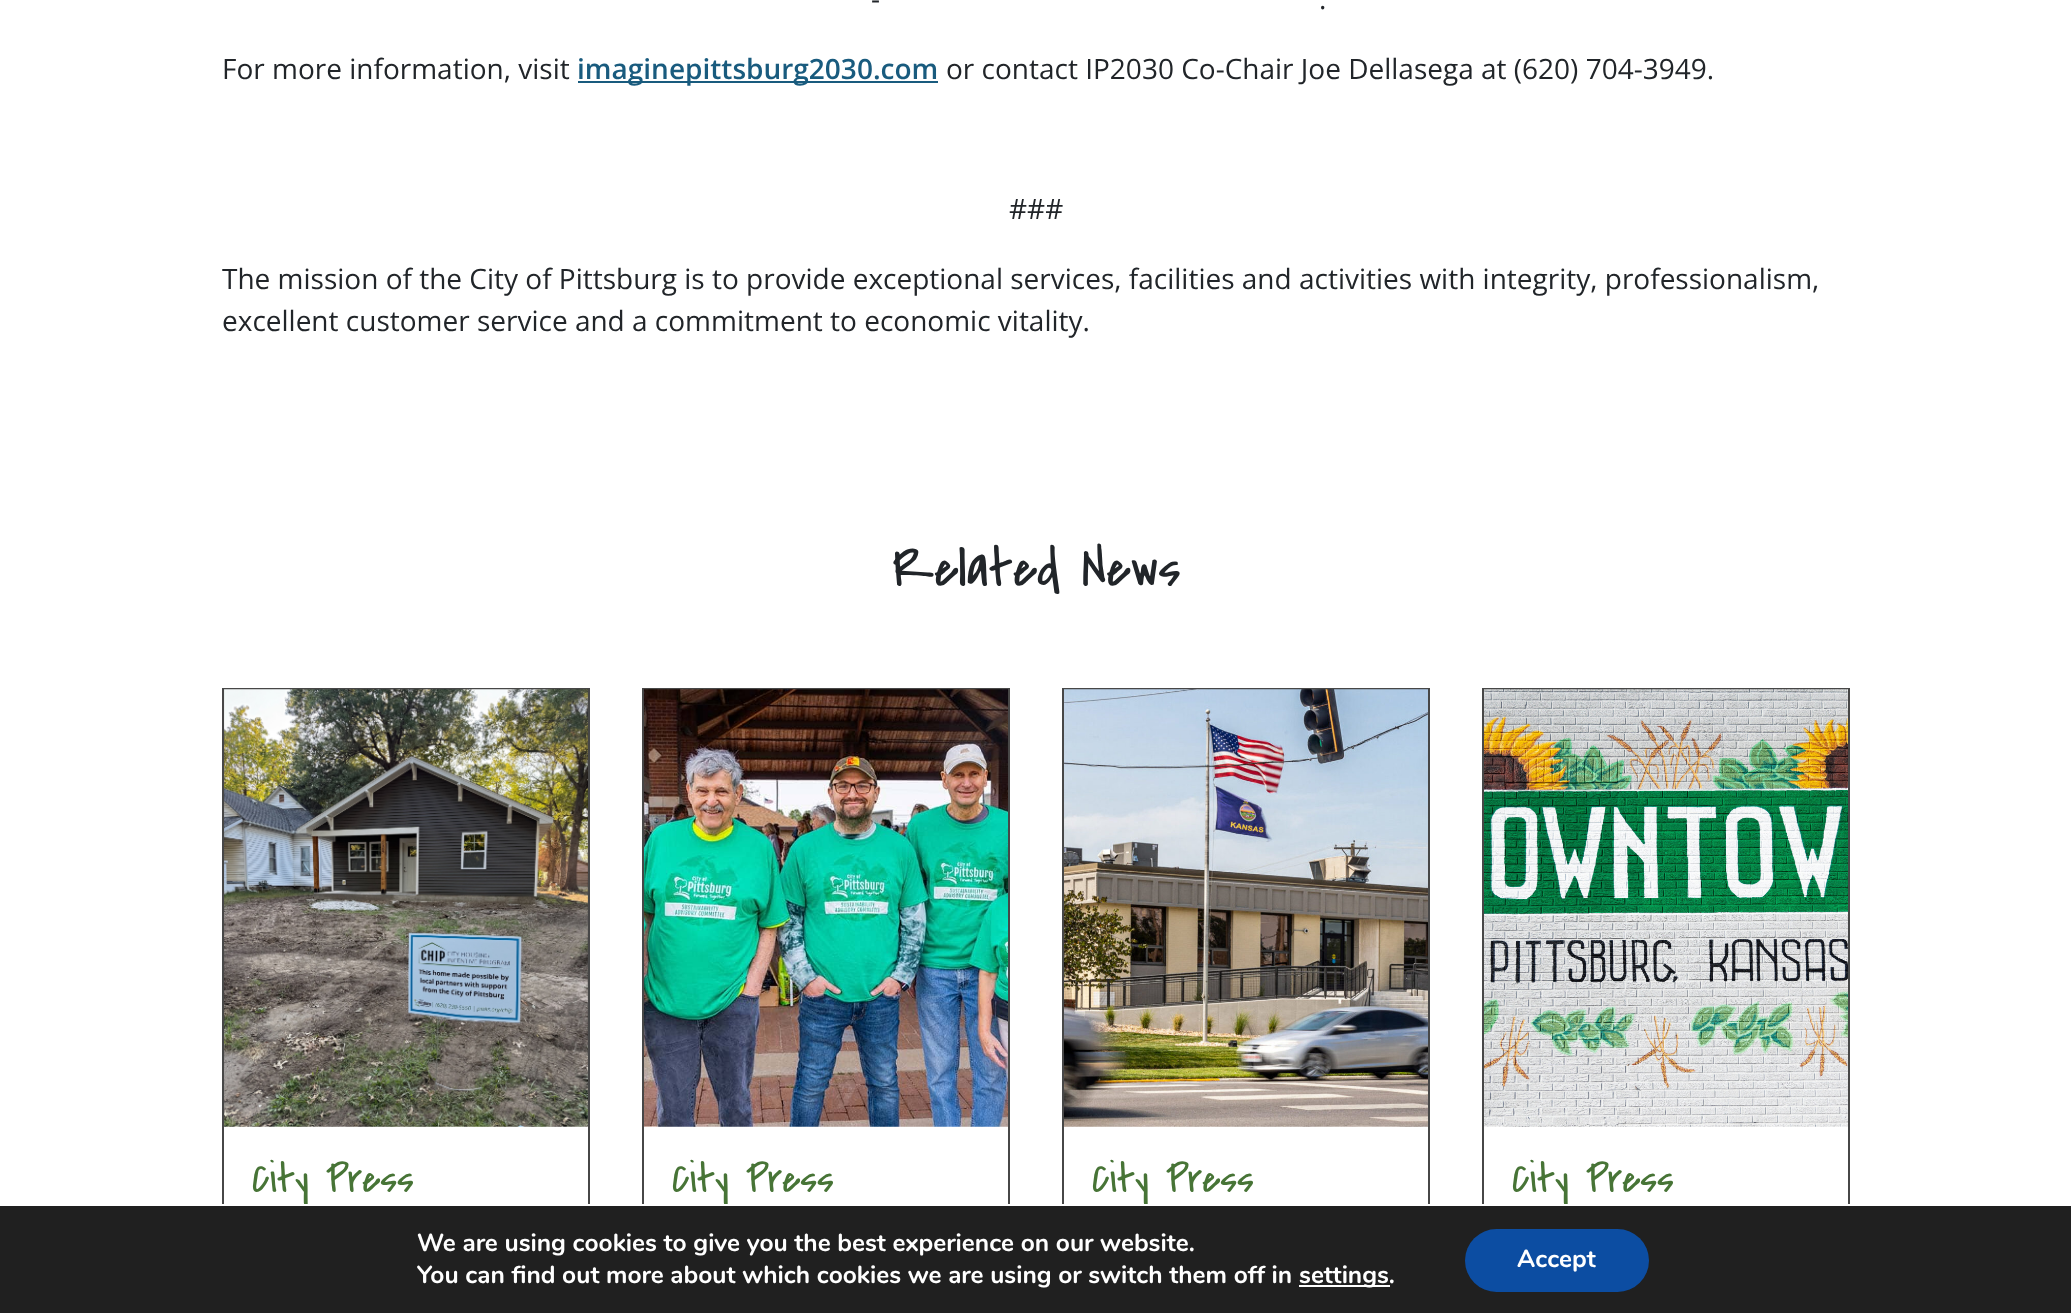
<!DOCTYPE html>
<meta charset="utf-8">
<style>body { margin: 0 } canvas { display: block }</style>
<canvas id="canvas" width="2071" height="1313"></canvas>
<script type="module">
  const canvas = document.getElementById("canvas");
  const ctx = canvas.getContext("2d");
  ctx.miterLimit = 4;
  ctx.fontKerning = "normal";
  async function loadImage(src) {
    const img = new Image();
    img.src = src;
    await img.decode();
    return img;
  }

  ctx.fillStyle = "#ffffff";
  ctx.fillRect(0, 0, 2071, 1313);
  ctx.font = "28px Open Sans";
  ctx.fillStyle = "#212529";
  ctx.fillText("-", 871, 9);
  ctx.fillText(".", 1319, 9);
  ctx.fillText("For more information, visit", 222, 79);
  ctx.fillStyle = "#195b7e";
  ctx.fillRect(578, 81, 360, 2);
  ctx.font = "600 28px Open Sans";
  ctx.fillText("imaginepittsburg2030.com", 577, 79);
  ctx.font = "28px Open Sans";
  ctx.fillStyle = "#212529";
  ctx.fillText("or contact IP2030 Co-Chair Joe Dellasega at (620) 704-3949.", 946, 79);
  ctx.fillText("###", 1009, 219);
  ctx.fillText("The mission of the City of Pittsburg is to provide exceptional services, facilities and activities with integrity, professionalism,", 222, 289);
  ctx.fillText("excellent customer service and a commitment to economic vitality.", 222, 331);
  ctx.font = "56px Covered By Your Grace";
  ctx.fillText("Related News", 892, 586);
  ctx.strokeStyle = "#474747";
  ctx.lineWidth = 2;
  ctx.strokeRect(223, 689, 366, 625);
  ctx.drawImage(await loadImage("img1.png"), 224, 689, 364, 438);
  ctx.font = "42px Covered By Your Grace";
  ctx.fillStyle = "#477436";
  ctx.fillText("City Press", 252, 1192);
  ctx.strokeRect(643, 689, 366, 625);
  ctx.drawImage(await loadImage("img2.png"), 644, 689, 364, 438);
  ctx.fillText("City Press", 672, 1192);
  ctx.strokeRect(1063, 689, 366, 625);
  ctx.drawImage(await loadImage("img3.png"), 1064, 689, 364, 438);
  ctx.fillText("City Press", 1092, 1192);
  ctx.strokeRect(1483, 689, 366, 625);
  ctx.drawImage(await loadImage("img4.png"), 1484, 689, 364, 438);
  ctx.fillText("City Press", 1512, 1192);
  ctx.fillStyle = "#202020";
  ctx.fillRect(0, 1206, 2071, 107);
  ctx.fillStyle = "#ffffff";
  ctx.fillRect(222, 1204, 1628, 2);
  ctx.font = "bold 24.5px Nunito";
  ctx.fillText("We are using cookies to give you the best experience on our website.", 417, 1251);
  ctx.fillText("You can find out more about which cookies we are using or switch them off in", 417, 1283);
  ctx.fillRect(1299, 1285, 91, 2);
  ctx.fillText("settings.", 1299, 1283);
  ctx.fillStyle = "#0c4da2";
  ctx.beginPath();
  ctx.roundRect(1465, 1229, 184, 63, 31.5);
  ctx.fill();
  ctx.fillStyle = "#ffffff";
  ctx.fillText("Accept", 1517, 1267);
</script>
